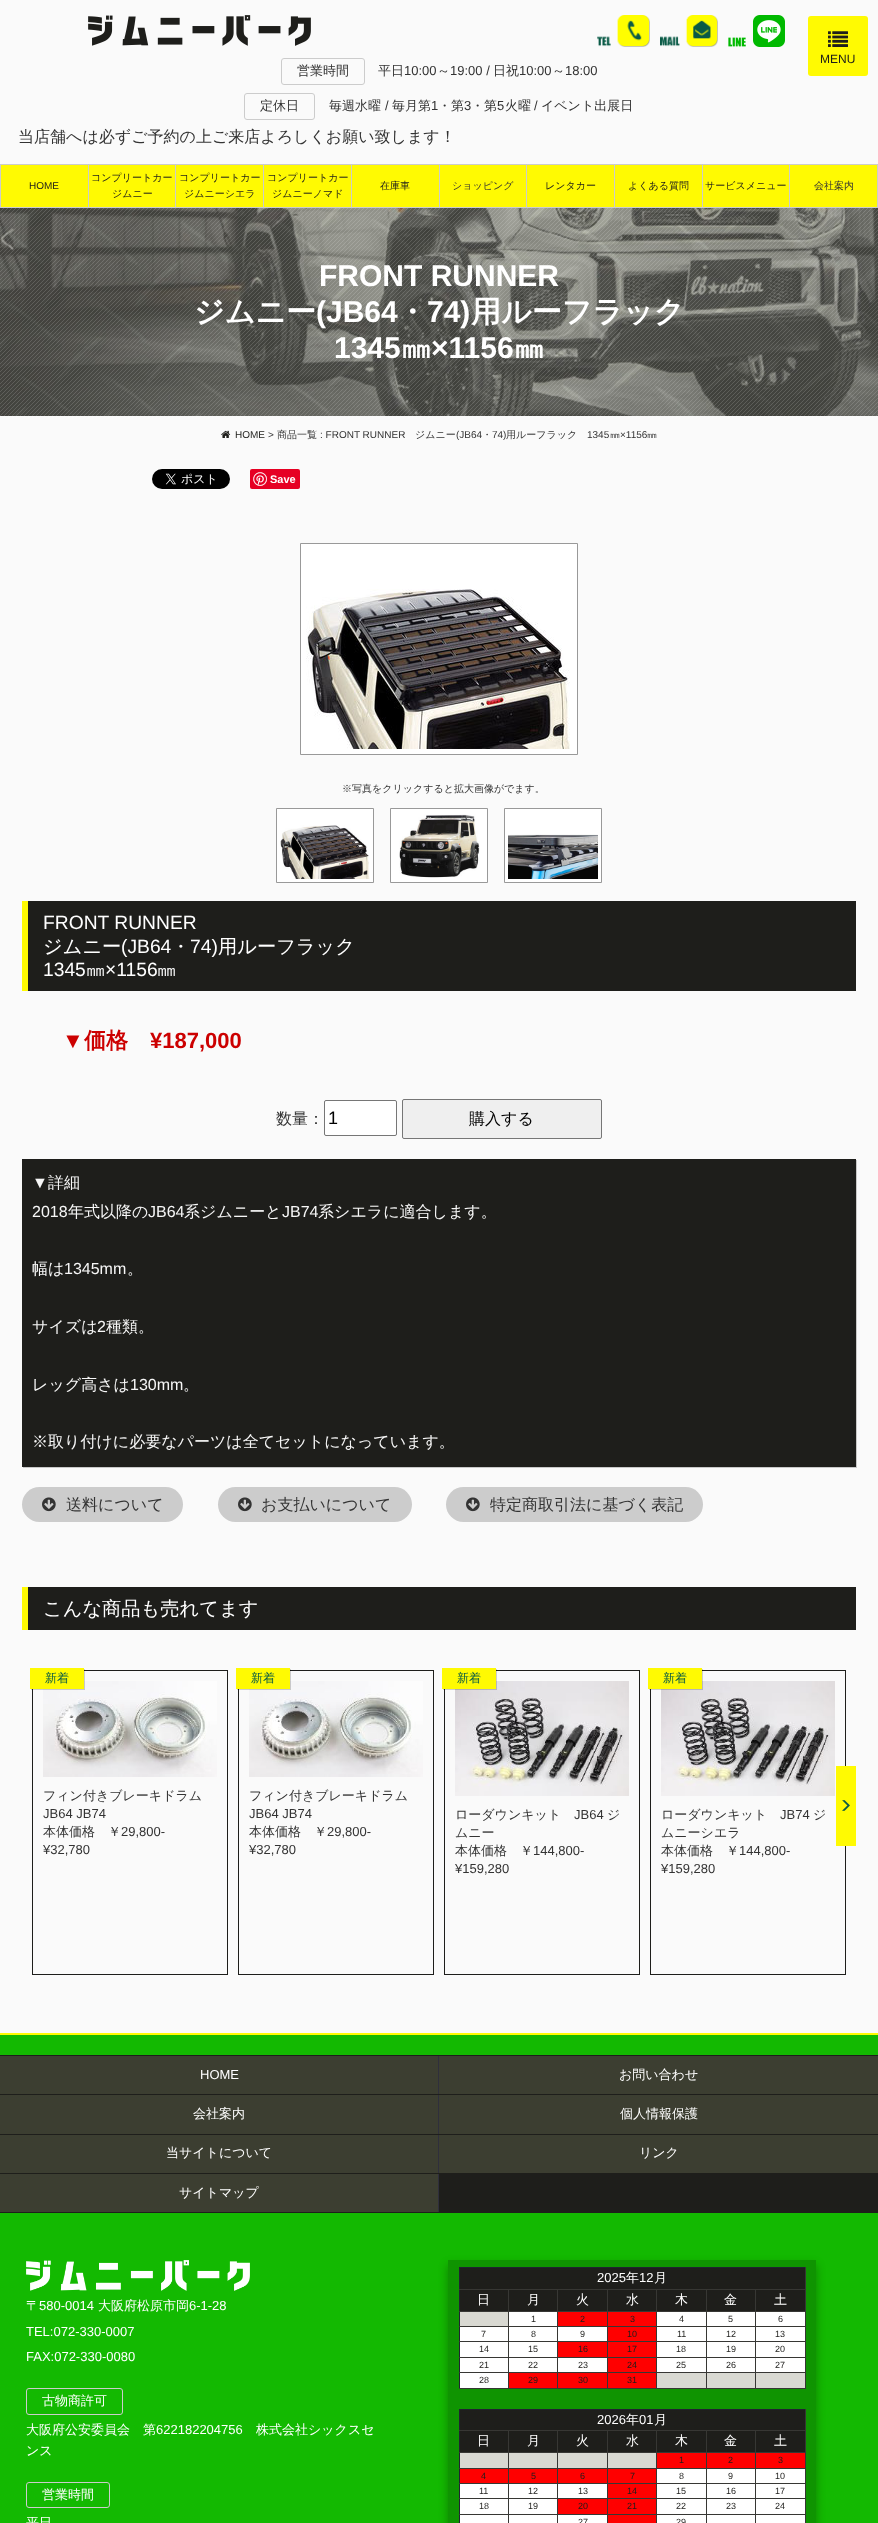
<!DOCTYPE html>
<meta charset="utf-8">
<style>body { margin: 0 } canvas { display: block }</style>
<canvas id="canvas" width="878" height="2523"></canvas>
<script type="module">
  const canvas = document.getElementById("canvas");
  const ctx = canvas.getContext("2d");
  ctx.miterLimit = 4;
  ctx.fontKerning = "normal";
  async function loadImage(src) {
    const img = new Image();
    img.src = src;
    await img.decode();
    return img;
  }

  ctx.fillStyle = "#fafafa";
  ctx.fillRect(0, 0, 878, 2523);
  ctx.fillStyle = "#fffa02";
  ctx.beginPath();
  ctx.roundRect(808, 16, 60, 60, 3);
  ctx.fill();
  ctx.drawImage(await loadImage("img1.png"), 828, 31, 20, 16);
  ctx.font = "12px Liberation Sans";
  ctx.fillStyle = "#1e1e1b";
  ctx.fillText("MENU", 820, 63);
  ctx.drawImage(await loadImage("img2.png"), 88, 15, 223, 31);
  ctx.drawImage(await loadImage("img3.png"), 597, 15, 53, 32);
  ctx.drawImage(await loadImage("img4.png"), 660, 15, 58, 32);
  ctx.drawImage(await loadImage("img5.png"), 728, 15, 57, 32);
  ctx.beginPath();
  ctx.roundRect(281.5, 58.5, 83, 26, 2.5);
  ctx.strokeStyle = "#cccccc";
  ctx.stroke();
  ctx.font = "500 13px WenQuanYi Zen Hei";
  ctx.fillStyle = "#333333";
  ctx.fillText("営業時間", 297, 75);
  ctx.fillText("平日", 378, 75);
  ctx.font = "13px Liberation Sans";
  ctx.fillText("10:00", 404, 75);
  ctx.font = "500 13px WenQuanYi Zen Hei";
  ctx.fillText("～", 437, 75);
  ctx.font = "13px Liberation Sans";
  ctx.fillText("19:00 /", 450, 75);
  ctx.font = "500 13px WenQuanYi Zen Hei";
  ctx.fillText("日祝", 493, 75);
  ctx.font = "13px Liberation Sans";
  ctx.fillText("10:00", 519, 75);
  ctx.font = "500 13px WenQuanYi Zen Hei";
  ctx.fillText("～", 552, 75);
  ctx.font = "13px Liberation Sans";
  ctx.fillText("18:00", 565, 75);
  ctx.beginPath();
  ctx.roundRect(244.5, 93.5, 70, 26, 2.5);
  ctx.stroke();
  ctx.font = "500 13px WenQuanYi Zen Hei";
  ctx.fillText("定休日", 260, 110);
  ctx.fillText("毎週水曜", 329, 110);
  ctx.font = "13px Liberation Sans";
  ctx.fillText("/", 385, 110);
  ctx.font = "500 13px WenQuanYi Zen Hei";
  ctx.fillText("毎月第", 392, 110);
  ctx.font = "13px Liberation Sans";
  ctx.fillText("1", 431, 110);
  ctx.font = "500 13px WenQuanYi Zen Hei";
  ctx.fillText("・第", 438, 110);
  ctx.font = "13px Liberation Sans";
  ctx.fillText("3", 464, 110);
  ctx.font = "500 13px WenQuanYi Zen Hei";
  ctx.fillText("・第", 471, 110);
  ctx.font = "13px Liberation Sans";
  ctx.fillText("5", 497, 110);
  ctx.font = "500 13px WenQuanYi Zen Hei";
  ctx.fillText("火曜", 505, 110);
  ctx.font = "13px Liberation Sans";
  ctx.fillText("/", 534, 110);
  ctx.font = "500 13px WenQuanYi Zen Hei";
  ctx.fillText("イベント出展日", 541, 110);
  ctx.font = "500 16px WenQuanYi Zen Hei";
  ctx.fillText("当店舗へは必ずご予約の上ご来店よろしくお願い致します！", 18, 142);
  ctx.fillStyle = "#fffa02";
  ctx.fillRect(1, 165, 876, 42);
  ctx.fillStyle = "#cccccc";
  ctx.fillRect(0, 164, 878, 1);
  ctx.fillRect(0, 207, 789, 1);
  ctx.fillRect(0, 165, 1, 43);
  ctx.font = "10px Liberation Sans";
  ctx.fillStyle = "#1e1e1b";
  ctx.fillText("HOME", 29, 189);
  ctx.fillStyle = "#cccccc";
  ctx.fillRect(88, 165, 1, 43);
  ctx.font = "500 10px WenQuanYi Zen Hei";
  ctx.fillStyle = "#1e1e1b";
  ctx.fillText("コンプリートカー", 91, 181);
  ctx.fillText("ジムニー", 112, 197);
  ctx.fillStyle = "#cccccc";
  ctx.fillRect(175, 165, 1, 43);
  ctx.fillStyle = "#1e1e1b";
  ctx.fillText("コンプリートカー", 179, 181);
  ctx.fillText("ジムニーシエラ", 184, 197);
  ctx.fillStyle = "#cccccc";
  ctx.fillRect(263, 165, 1, 43);
  ctx.fillStyle = "#1e1e1b";
  ctx.fillText("コンプリートカー", 267, 181);
  ctx.fillText("ジムニーノマド", 272, 197);
  ctx.fillStyle = "#cccccc";
  ctx.fillRect(351, 165, 1, 43);
  ctx.fillStyle = "#1e1e1b";
  ctx.fillText("在庫車", 380, 189);
  ctx.fillStyle = "#cccccc";
  ctx.fillRect(439, 165, 1, 43);
  ctx.fillStyle = "#333333";
  ctx.fillText("ショッピング", 452, 189);
  ctx.fillStyle = "#cccccc";
  ctx.fillRect(526, 165, 1, 43);
  ctx.fillStyle = "#1e1e1b";
  ctx.fillText("レンタカー", 545, 189);
  ctx.fillStyle = "#cccccc";
  ctx.fillRect(614, 165, 1, 43);
  ctx.fillStyle = "#1e1e1b";
  ctx.fillText("よくある質問", 628, 189);
  ctx.fillStyle = "#cccccc";
  ctx.fillRect(702, 165, 1, 43);
  ctx.fillStyle = "#1e1e1b";
  ctx.fillText("サービスメニュー", 705, 189);
  ctx.fillStyle = "#cccccc";
  ctx.fillRect(877, 165, 1, 43);
  ctx.fillRect(789, 207, 89, 1);
  ctx.fillRect(789, 165, 1, 43);
  ctx.fillStyle = "#333333";
  ctx.fillText("会社案内", 814, 189);
  ctx.drawImage(await loadImage("img6.png"), 0, 208, 878, 208);
  ctx.font = "bold 30px Liberation Sans";
  ctx.fillStyle = "#ffffff";
  ctx.fillText("FRONT RUNNER", 319, 286);
  ctx.font = "bold 30px WenQuanYi Zen Hei";
  ctx.fillText("ジムニー", 194, 322);
  ctx.font = "bold 30px Liberation Sans";
  ctx.fillText("(JB64", 316, 322);
  ctx.font = "bold 30px WenQuanYi Zen Hei";
  ctx.fillText("・", 397, 322);
  ctx.font = "bold 30px Liberation Sans";
  ctx.fillText("74)", 427, 322);
  ctx.font = "bold 30px WenQuanYi Zen Hei";
  ctx.fillText("用ルーフラック", 471, 322);
  ctx.font = "bold 30px Liberation Sans";
  ctx.fillText("1345", 334, 358);
  ctx.font = "bold 30px WenQuanYi Zen Hei";
  ctx.fillText("㎜", 401, 358);
  ctx.font = "bold 30px Liberation Sans";
  ctx.fillText("×1156", 431, 358);
  ctx.font = "bold 30px WenQuanYi Zen Hei";
  ctx.fillText("㎜", 514, 358);
  ctx.drawImage(await loadImage("img7.png"), 0, 208, 878, 208);
  ctx.drawImage(await loadImage("img8.png"), 221, 430, 10, 8);
  ctx.font = "10px Liberation Sans";
  ctx.fillStyle = "#1e1e1b";
  ctx.fillText("HOME", 235, 438);
  ctx.fillStyle = "#333333";
  ctx.fillText(">", 268, 438);
  ctx.font = "500 10px WenQuanYi Zen Hei";
  ctx.fillText("商品一覧", 277, 438);
  ctx.font = "10px Liberation Sans";
  ctx.fillText(": FRONT RUNNER", 320, 438);
  ctx.font = "500 10px WenQuanYi Zen Hei";
  ctx.fillText("ジムニー", 415, 438);
  ctx.font = "10px Liberation Sans";
  ctx.fillText("(JB64", 456, 438);
  ctx.font = "500 10px WenQuanYi Zen Hei";
  ctx.fillText("・", 482, 438);
  ctx.font = "10px Liberation Sans";
  ctx.fillText("74)", 492, 438);
  ctx.font = "500 10px WenQuanYi Zen Hei";
  ctx.fillText("用ルーフラック", 506, 438);
  ctx.font = "10px Liberation Sans";
  ctx.fillText("1345", 587, 438);
  ctx.font = "500 10px WenQuanYi Zen Hei";
  ctx.fillText("㎜", 610, 438);
  ctx.font = "10px Liberation Sans";
  ctx.fillText("×1156", 620, 438);
  ctx.font = "500 10px WenQuanYi Zen Hei";
  ctx.fillText("㎜", 647, 438);
  ctx.drawImage(await loadImage("img9.png"), 152, 469, 78, 20);
  ctx.fillStyle = "#e60023";
  ctx.beginPath();
  ctx.roundRect(250, 469, 50, 20, 2);
  ctx.fill();
  ctx.drawImage(await loadImage("img10.png"), 253, 472, 14, 14);
  ctx.font = "bold 11px Liberation Sans";
  ctx.fillStyle = "#ffffff";
  ctx.fillText("Save", 270, 483);
  ctx.beginPath();
  ctx.rect(300.5, 543.5, 277, 211);
  ctx.fill();
  ctx.strokeStyle = "#999999";
  ctx.stroke();
  ctx.drawImage(await loadImage("img11.png"), 306, 589, 264, 160);
  ctx.font = "500 10px WenQuanYi Zen Hei";
  ctx.fillStyle = "#333333";
  ctx.fillText("※写真をクリックすると拡大画像がでます。", 342, 792);
  ctx.fillStyle = "#ffffff";
  ctx.beginPath();
  ctx.rect(276.5, 808.5, 97, 74);
  ctx.fill();
  ctx.stroke();
  ctx.drawImage(await loadImage("img12.png"), 280, 825, 90, 54);
  ctx.beginPath();
  ctx.rect(390.5, 808.5, 97, 74);
  ctx.fill();
  ctx.stroke();
  ctx.drawImage(await loadImage("img13.png"), 399, 814, 81, 64);
  ctx.beginPath();
  ctx.rect(504.5, 808.5, 97, 74);
  ctx.fill();
  ctx.stroke();
  ctx.drawImage(await loadImage("img14.png"), 508, 834, 90, 45);
  ctx.fillStyle = "#1e1e1b";
  ctx.fillRect(28, 901, 828, 90);
  ctx.fillStyle = "#fffa02";
  ctx.fillRect(22, 901, 6, 90);
  ctx.font = "19.25px Liberation Sans";
  ctx.fillStyle = "#ffffff";
  ctx.fillText("FRONT RUNNER", 43, 929);
  ctx.font = "500 19.25px WenQuanYi Zen Hei";
  ctx.fillText("ジムニー", 43, 953);
  ctx.font = "19.25px Liberation Sans";
  ctx.fillText("(JB64", 121, 953);
  ctx.font = "500 19.25px WenQuanYi Zen Hei";
  ctx.fillText("・", 171, 953);
  ctx.font = "19.25px Liberation Sans";
  ctx.fillText("74)", 190, 953);
  ctx.font = "500 19.25px WenQuanYi Zen Hei";
  ctx.fillText("用ルーフラック", 218, 953);
  ctx.font = "19.25px Liberation Sans";
  ctx.fillText("1345", 43, 976);
  ctx.font = "500 19.25px WenQuanYi Zen Hei";
  ctx.fillText("㎜", 86, 976);
  ctx.font = "19.25px Liberation Sans";
  ctx.fillText("×1156", 105, 976);
  ctx.font = "500 19.25px WenQuanYi Zen Hei";
  ctx.fillText("㎜", 157, 976);
  ctx.font = "bold 22px Liberation Sans";
  ctx.fillStyle = "#cc0000";
  ctx.fillText("▼", 62, 1048);
  ctx.font = "bold 22px WenQuanYi Zen Hei";
  ctx.fillText("価格", 84, 1048);
  ctx.font = "bold 22px Liberation Sans";
  ctx.fillText("¥187,000", 150, 1048);
  ctx.font = "500 16px WenQuanYi Zen Hei";
  ctx.fillStyle = "#333333";
  ctx.fillText("数量：", 276, 1124);
  ctx.fillStyle = "#ffffff";
  ctx.beginPath();
  ctx.roundRect(324.5, 1100.5, 72, 35, 1.5);
  ctx.fill();
  ctx.strokeStyle = "#767676";
  ctx.stroke();
  ctx.font = "18px Liberation Sans";
  ctx.fillStyle = "#000000";
  ctx.fillText("1", 328, 1124);
  ctx.fillStyle = "#efefef";
  ctx.beginPath();
  ctx.roundRect(402.5, 1099.5, 199, 39, 1.5);
  ctx.fill();
  ctx.stroke();
  ctx.font = "500 16px WenQuanYi Zen Hei";
  ctx.fillStyle = "#000000";
  ctx.fillText("購入する", 469, 1124);
  ctx.fillStyle = "rgba(0, 0, 0, 0.2)";
  ctx.filter = "blur(0.5px)";
  ctx.beginPath();
  ctx.rect(23, 1160, 834, 308);
  ctx.fill();
  ctx.filter = "none";
  ctx.fillStyle = "#1e1e1b";
  ctx.fillRect(22, 1159, 834, 308);
  ctx.font = "16px Liberation Sans";
  ctx.fillStyle = "#f7f7f7";
  ctx.fillText("▼", 32, 1188);
  ctx.font = "500 16px WenQuanYi Zen Hei";
  ctx.fillText("詳細", 48, 1188);
  ctx.font = "16px Liberation Sans";
  ctx.fillText("2018", 32, 1217);
  ctx.font = "500 16px WenQuanYi Zen Hei";
  ctx.fillText("年式以降の", 68, 1217);
  ctx.font = "16px Liberation Sans";
  ctx.fillText("JB64", 148, 1217);
  ctx.font = "500 16px WenQuanYi Zen Hei";
  ctx.fillText("系ジムニーと", 184, 1217);
  ctx.font = "16px Liberation Sans";
  ctx.fillText("JB74", 282, 1217);
  ctx.font = "500 16px WenQuanYi Zen Hei";
  ctx.fillText("系シエラに適合します。", 318, 1217);
  ctx.fillText("幅は", 32, 1274);
  ctx.font = "16px Liberation Sans";
  ctx.fillText("1345mm", 64, 1274);
  ctx.font = "500 16px WenQuanYi Zen Hei";
  ctx.fillText("。", 127, 1274);
  ctx.fillText("サイズは", 32, 1332);
  ctx.font = "16px Liberation Sans";
  ctx.fillText("2", 97, 1332);
  ctx.font = "500 16px WenQuanYi Zen Hei";
  ctx.fillText("種類。", 106, 1332);
  ctx.fillText("レッグ高さは", 32, 1390);
  ctx.font = "16px Liberation Sans";
  ctx.fillText("130mm", 130, 1390);
  ctx.font = "500 16px WenQuanYi Zen Hei";
  ctx.fillText("。", 183, 1390);
  ctx.fillText("※取り付けに必要なパーツは全てセットになっています。", 32, 1447);
  ctx.fillStyle = "#cccccc";
  ctx.beginPath();
  ctx.roundRect(22, 1487, 161, 35, 17.5);
  ctx.fill();
  ctx.drawImage(await loadImage("img15.png"), 42, 1497, 14, 15);
  ctx.fillStyle = "#333333";
  ctx.fillText("送料について", 66, 1510);
  ctx.fillStyle = "#cccccc";
  ctx.beginPath();
  ctx.roundRect(218, 1487, 194, 35, 17.5);
  ctx.fill();
  ctx.drawImage(await loadImage("img15.png"), 238, 1497, 14, 15);
  ctx.fillStyle = "#333333";
  ctx.fillText("お支払いについて", 261, 1510);
  ctx.fillStyle = "#cccccc";
  ctx.beginPath();
  ctx.roundRect(446, 1487, 257, 35, 17.5);
  ctx.fill();
  ctx.drawImage(await loadImage("img15.png"), 466, 1497, 14, 15);
  ctx.fillStyle = "#333333";
  ctx.fillText("特定商取引法に基づく表記", 490, 1510);
  ctx.fillStyle = "#1e1e1b";
  ctx.fillRect(28, 1587, 828, 43);
  ctx.fillStyle = "#fffa02";
  ctx.fillRect(22, 1587, 6, 43);
  ctx.font = "500 19.25px WenQuanYi Zen Hei";
  ctx.fillStyle = "#ffffff";
  ctx.fillText("こんな商品も売れてます", 43, 1615);
  ctx.strokeStyle = "#1e1e1b";
  ctx.strokeRect(32.5, 1670.5, 195, 304);
  ctx.drawImage(await loadImage("img16.png"), 43, 1681, 174, 96);
  ctx.fillStyle = "rgba(0, 0, 0, 0.18)";
  ctx.filter = "blur(0.5px)";
  ctx.beginPath();
  ctx.rect(31, 1669, 54, 21);
  ctx.fill();
  ctx.filter = "none";
  ctx.fillStyle = "#fffa02";
  ctx.fillRect(30, 1668, 54, 21);
  ctx.font = "500 12px WenQuanYi Zen Hei";
  ctx.fillStyle = "#095a46";
  ctx.fillText("新着", 45, 1682);
  ctx.font = "500 13px WenQuanYi Zen Hei";
  ctx.fillStyle = "#333333";
  ctx.fillText("フィン付きブレーキドラム", 43, 1800);
  ctx.font = "13px Liberation Sans";
  ctx.fillText("JB64 JB74", 43, 1818);
  ctx.font = "500 13px WenQuanYi Zen Hei";
  ctx.fillText("本体価格　￥", 43, 1836);
  ctx.font = "13px Liberation Sans";
  ctx.fillText("29,800-", 121, 1836);
  ctx.fillText("¥32,780", 43, 1854);
  ctx.strokeRect(238.5, 1670.5, 195, 304);
  ctx.drawImage(await loadImage("img16.png"), 249, 1681, 174, 96);
  ctx.fillStyle = "rgba(0, 0, 0, 0.18)";
  ctx.filter = "blur(0.5px)";
  ctx.beginPath();
  ctx.rect(237, 1669, 54, 21);
  ctx.fill();
  ctx.filter = "none";
  ctx.fillStyle = "#fffa02";
  ctx.fillRect(236, 1668, 54, 21);
  ctx.font = "500 12px WenQuanYi Zen Hei";
  ctx.fillStyle = "#095a46";
  ctx.fillText("新着", 251, 1682);
  ctx.font = "500 13px WenQuanYi Zen Hei";
  ctx.fillStyle = "#333333";
  ctx.fillText("フィン付きブレーキドラム", 249, 1800);
  ctx.font = "13px Liberation Sans";
  ctx.fillText("JB64 JB74", 249, 1818);
  ctx.font = "500 13px WenQuanYi Zen Hei";
  ctx.fillText("本体価格　￥", 249, 1836);
  ctx.font = "13px Liberation Sans";
  ctx.fillText("29,800-", 327, 1836);
  ctx.fillText("¥32,780", 249, 1854);
  ctx.strokeRect(444.5, 1670.5, 195, 304);
  ctx.drawImage(await loadImage("img17.png"), 455, 1681, 174, 115);
  ctx.fillStyle = "rgba(0, 0, 0, 0.18)";
  ctx.filter = "blur(0.5px)";
  ctx.beginPath();
  ctx.rect(443, 1669, 54, 21);
  ctx.fill();
  ctx.filter = "none";
  ctx.fillStyle = "#fffa02";
  ctx.fillRect(442, 1668, 54, 21);
  ctx.font = "500 12px WenQuanYi Zen Hei";
  ctx.fillStyle = "#095a46";
  ctx.fillText("新着", 457, 1682);
  ctx.font = "500 13px WenQuanYi Zen Hei";
  ctx.fillStyle = "#333333";
  ctx.fillText("ローダウンキット", 455, 1819);
  ctx.font = "13px Liberation Sans";
  ctx.fillText("JB64", 574, 1819);
  ctx.font = "500 13px WenQuanYi Zen Hei";
  ctx.fillText("ジ", 607, 1819);
  ctx.fillText("ムニー", 455, 1837);
  ctx.fillText("本体価格　￥", 455, 1855);
  ctx.font = "13px Liberation Sans";
  ctx.fillText("144,800-", 533, 1855);
  ctx.fillText("¥159,280", 455, 1873);
  ctx.strokeRect(650.5, 1670.5, 195, 304);
  ctx.drawImage(await loadImage("img18.png"), 661, 1681, 174, 115);
  ctx.fillStyle = "rgba(0, 0, 0, 0.18)";
  ctx.filter = "blur(0.5px)";
  ctx.beginPath();
  ctx.rect(649, 1669, 54, 21);
  ctx.fill();
  ctx.filter = "none";
  ctx.fillStyle = "#fffa02";
  ctx.fillRect(648, 1668, 54, 21);
  ctx.font = "500 12px WenQuanYi Zen Hei";
  ctx.fillStyle = "#095a46";
  ctx.fillText("新着", 663, 1682);
  ctx.font = "500 13px WenQuanYi Zen Hei";
  ctx.fillStyle = "#333333";
  ctx.fillText("ローダウンキット", 661, 1819);
  ctx.font = "13px Liberation Sans";
  ctx.fillText("JB74", 780, 1819);
  ctx.font = "500 13px WenQuanYi Zen Hei";
  ctx.fillText("ジ", 813, 1819);
  ctx.fillText("ムニーシエラ", 661, 1837);
  ctx.fillText("本体価格　￥", 661, 1855);
  ctx.font = "13px Liberation Sans";
  ctx.fillText("144,800-", 739, 1855);
  ctx.fillText("¥159,280", 661, 1873);
  ctx.drawImage(await loadImage("img19.png"), 836, 1766, 20, 80);
  ctx.fillStyle = "#13b901";
  ctx.fillRect(0, 2035, 878, 488);
  ctx.fillStyle = "#fffa02";
  ctx.fillRect(0, 2033, 878, 2);
  ctx.fillStyle = "#1e1e1b";
  ctx.fillRect(0, 2055, 878, 158);
  ctx.fillStyle = "#3c3e31";
  ctx.fillRect(0, 2056, 438, 38);
  ctx.fillStyle = "#2f2f3c";
  ctx.fillRect(438, 2056, 1, 157);
  ctx.fillStyle = "#1e1e1b";
  ctx.fillRect(438, 2094, 1, 1);
  ctx.fillStyle = "#ffffff";
  ctx.fillText("HOME", 200, 2079);
  ctx.fillStyle = "#3c3e31";
  ctx.fillRect(439, 2056, 439, 38);
  ctx.font = "500 13px WenQuanYi Zen Hei";
  ctx.fillStyle = "#ffffff";
  ctx.fillText("お問い合わせ", 619, 2079);
  ctx.fillStyle = "#3c3e31";
  ctx.fillRect(0, 2095, 438, 39);
  ctx.fillStyle = "#1e1e1b";
  ctx.fillRect(438, 2134, 1, 1);
  ctx.fillStyle = "#ffffff";
  ctx.fillText("会社案内", 193, 2118);
  ctx.fillStyle = "#3c3e31";
  ctx.fillRect(439, 2095, 439, 39);
  ctx.fillStyle = "#ffffff";
  ctx.fillText("個人情報保護", 620, 2118);
  ctx.fillStyle = "#3c3e31";
  ctx.fillRect(0, 2135, 438, 38);
  ctx.fillStyle = "#1e1e1b";
  ctx.fillRect(438, 2173, 1, 1);
  ctx.fillStyle = "#ffffff";
  ctx.fillText("当サイトについて", 166, 2157);
  ctx.fillStyle = "#3c3e31";
  ctx.fillRect(439, 2135, 439, 38);
  ctx.fillStyle = "#ffffff";
  ctx.fillText("リンク", 639, 2157);
  ctx.fillStyle = "#3c3e31";
  ctx.fillRect(0, 2174, 438, 38);
  ctx.fillStyle = "#1e1e1b";
  ctx.fillRect(438, 2212, 1, 1);
  ctx.fillStyle = "#ffffff";
  ctx.fillText("サイトマップ", 179, 2197);
  ctx.drawImage(await loadImage("img20.png"), 26, 2260, 224, 31);
  ctx.fillText("〒", 26, 2310);
  ctx.font = "13px Liberation Sans";
  ctx.fillText("580-0014", 39, 2310);
  ctx.font = "500 13px WenQuanYi Zen Hei";
  ctx.fillText("大阪府松原市岡", 98, 2310);
  ctx.font = "13px Liberation Sans";
  ctx.fillText("6-1-28", 189, 2310);
  ctx.fillText("TEL:072-330-0007", 26, 2336);
  ctx.fillText("FAX:072-330-0080", 26, 2361);
  ctx.beginPath();
  ctx.roundRect(26.5, 2388.5, 96, 26, 2.5);
  ctx.strokeStyle = "#cccccc";
  ctx.stroke();
  ctx.font = "500 13px WenQuanYi Zen Hei";
  ctx.fillText("古物商許可", 42, 2405);
  ctx.fillText("大阪府公安委員会　第", 26, 2434);
  ctx.font = "13px Liberation Sans";
  ctx.fillText("622182204756", 156, 2434);
  ctx.font = "500 13px WenQuanYi Zen Hei";
  ctx.fillText("株式会社シックスセ", 256, 2434);
  ctx.fillText("ンス", 26, 2455);
  ctx.beginPath();
  ctx.roundRect(26.5, 2482.5, 83, 25, 2.5);
  ctx.stroke();
  ctx.fillText("営業時間", 42, 2499);
  ctx.fillText("平日", 26, 2527);
  ctx.fillStyle = "rgba(0, 0, 0, 0.3)";
  ctx.filter = "blur(5px)";
  ctx.beginPath();
  ctx.rect(448, 2265, 368, 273);
  ctx.fill();
  ctx.filter = "none";
  ctx.fillStyle = "#0f9401";
  ctx.fillRect(448, 2260, 368, 263);
  ctx.fillStyle = "#d9d9d2";
  ctx.fillRect(460, 2312, 345, 76);
  ctx.fillStyle = "#202331";
  ctx.fillRect(459, 2267, 347, 1);
  ctx.fillRect(459, 2267, 1, 122);
  ctx.fillStyle = "#1e1e1b";
  ctx.fillRect(460, 2268, 345, 21);
  ctx.fillStyle = "#373734";
  ctx.fillRect(805, 2267, 1, 122);
  ctx.fillRect(755, 2388, 51, 1);
  ctx.fillRect(755, 2372, 1, 17);
  ctx.fillRect(755, 2372, 51, 1);
  ctx.fillRect(755, 2357, 1, 16);
  ctx.fillRect(755, 2357, 51, 1);
  ctx.fillRect(755, 2341, 1, 17);
  ctx.fillRect(755, 2341, 51, 1);
  ctx.fillRect(755, 2326, 1, 16);
  ctx.fillRect(755, 2326, 51, 1);
  ctx.fillRect(755, 2311, 1, 16);
  ctx.fillRect(755, 2311, 51, 1);
  ctx.fillRect(755, 2289, 1, 23);
  ctx.fillRect(706, 2388, 50, 1);
  ctx.fillRect(706, 2372, 1, 17);
  ctx.fillRect(706, 2372, 50, 1);
  ctx.fillRect(706, 2357, 1, 16);
  ctx.fillRect(706, 2357, 50, 1);
  ctx.fillRect(706, 2341, 1, 17);
  ctx.fillRect(706, 2341, 50, 1);
  ctx.fillRect(706, 2326, 1, 16);
  ctx.fillRect(706, 2326, 50, 1);
  ctx.fillRect(706, 2311, 1, 16);
  ctx.fillRect(706, 2311, 50, 1);
  ctx.fillRect(706, 2289, 1, 23);
  ctx.fillRect(656, 2388, 51, 1);
  ctx.fillRect(656, 2372, 1, 17);
  ctx.fillRect(656, 2372, 51, 1);
  ctx.fillRect(656, 2357, 1, 16);
  ctx.fillRect(656, 2357, 51, 1);
  ctx.fillRect(656, 2341, 1, 17);
  ctx.fillRect(656, 2341, 51, 1);
  ctx.fillRect(656, 2326, 1, 16);
  ctx.fillRect(656, 2326, 51, 1);
  ctx.fillRect(656, 2311, 1, 16);
  ctx.fillRect(656, 2311, 51, 1);
  ctx.fillRect(656, 2289, 1, 23);
  ctx.fillRect(607, 2388, 50, 1);
  ctx.fillRect(607, 2372, 1, 17);
  ctx.fillRect(607, 2372, 50, 1);
  ctx.fillRect(607, 2357, 1, 16);
  ctx.fillRect(607, 2357, 50, 1);
  ctx.fillRect(607, 2341, 1, 17);
  ctx.fillRect(607, 2341, 50, 1);
  ctx.fillRect(607, 2326, 1, 16);
  ctx.fillRect(607, 2326, 50, 1);
  ctx.fillRect(607, 2311, 1, 16);
  ctx.fillRect(607, 2311, 50, 1);
  ctx.fillRect(607, 2289, 1, 23);
  ctx.fillRect(557, 2388, 51, 1);
  ctx.fillRect(557, 2372, 1, 17);
  ctx.fillRect(557, 2372, 51, 1);
  ctx.fillRect(557, 2357, 1, 16);
  ctx.fillRect(557, 2357, 51, 1);
  ctx.fillRect(557, 2341, 1, 17);
  ctx.fillRect(557, 2341, 51, 1);
  ctx.fillRect(557, 2326, 1, 16);
  ctx.fillRect(557, 2326, 51, 1);
  ctx.fillRect(557, 2311, 1, 16);
  ctx.fillRect(557, 2311, 51, 1);
  ctx.fillRect(557, 2289, 1, 23);
  ctx.fillRect(508, 2388, 50, 1);
  ctx.fillRect(508, 2372, 1, 17);
  ctx.fillRect(508, 2372, 50, 1);
  ctx.fillRect(508, 2357, 1, 16);
  ctx.fillRect(508, 2357, 50, 1);
  ctx.fillRect(508, 2341, 1, 17);
  ctx.fillRect(508, 2341, 50, 1);
  ctx.fillRect(508, 2326, 1, 16);
  ctx.fillRect(508, 2326, 50, 1);
  ctx.fillRect(508, 2311, 1, 16);
  ctx.fillRect(508, 2311, 50, 1);
  ctx.fillRect(508, 2289, 1, 23);
  ctx.fillRect(459, 2289, 347, 1);
  ctx.font = "13px Liberation Sans";
  ctx.fillStyle = "#ffffff";
  ctx.fillText("2025", 597, 2282);
  ctx.font = "500 13px WenQuanYi Zen Hei";
  ctx.fillText("年", 626, 2282);
  ctx.font = "13px Liberation Sans";
  ctx.fillText("12", 639, 2282);
  ctx.font = "500 13px WenQuanYi Zen Hei";
  ctx.fillText("月", 654, 2282);
  ctx.fillStyle = "#1e1e1b";
  ctx.fillRect(460, 2290, 48, 21);
  ctx.fillStyle = "#373734";
  ctx.fillRect(459, 2311, 50, 1);
  ctx.fillStyle = "#ffffff";
  ctx.fillText("日", 477, 2304);
  ctx.fillStyle = "#1e1e1b";
  ctx.fillRect(509, 2290, 48, 21);
  ctx.fillStyle = "#ffffff";
  ctx.fillText("月", 527, 2304);
  ctx.fillStyle = "#1e1e1b";
  ctx.fillRect(558, 2290, 49, 21);
  ctx.fillStyle = "#ffffff";
  ctx.fillText("火", 576, 2304);
  ctx.fillStyle = "#1e1e1b";
  ctx.fillRect(608, 2290, 48, 21);
  ctx.fillStyle = "#ffffff";
  ctx.fillText("水", 626, 2304);
  ctx.fillStyle = "#1e1e1b";
  ctx.fillRect(657, 2290, 49, 21);
  ctx.fillStyle = "#ffffff";
  ctx.fillText("木", 675, 2304);
  ctx.fillStyle = "#1e1e1b";
  ctx.fillRect(707, 2290, 48, 21);
  ctx.fillStyle = "#ffffff";
  ctx.fillText("金", 724, 2304);
  ctx.fillStyle = "#1e1e1b";
  ctx.fillRect(756, 2290, 49, 21);
  ctx.fillStyle = "#ffffff";
  ctx.fillText("土", 774, 2304);
  ctx.fillStyle = "#373734";
  ctx.fillRect(459, 2326, 50, 1);
  ctx.fillStyle = "#ffffff";
  ctx.fillRect(509, 2312, 48, 14);
  ctx.font = "9px Liberation Sans";
  ctx.fillStyle = "#1e1e1b";
  ctx.fillText("1", 531, 2322);
  ctx.fillStyle = "#ff0000";
  ctx.fillRect(558, 2312, 49, 14);
  ctx.fillStyle = "#1e1e1b";
  ctx.fillText("2", 580, 2322);
  ctx.fillStyle = "#ff0000";
  ctx.fillRect(608, 2312, 48, 14);
  ctx.fillStyle = "#1e1e1b";
  ctx.fillText("3", 630, 2322);
  ctx.fillStyle = "#ffffff";
  ctx.fillRect(657, 2312, 49, 14);
  ctx.fillStyle = "#1e1e1b";
  ctx.fillText("4", 679, 2322);
  ctx.fillStyle = "#ffffff";
  ctx.fillRect(707, 2312, 48, 14);
  ctx.fillStyle = "#1e1e1b";
  ctx.fillText("5", 728, 2322);
  ctx.fillStyle = "#ffffff";
  ctx.fillRect(756, 2312, 49, 14);
  ctx.fillStyle = "#1e1e1b";
  ctx.fillText("6", 778, 2322);
  ctx.fillStyle = "#ffffff";
  ctx.fillRect(460, 2327, 48, 14);
  ctx.fillStyle = "#373734";
  ctx.fillRect(459, 2341, 50, 1);
  ctx.fillStyle = "#1e1e1b";
  ctx.fillText("7", 481, 2337);
  ctx.fillStyle = "#ffffff";
  ctx.fillRect(509, 2327, 48, 14);
  ctx.fillStyle = "#1e1e1b";
  ctx.fillText("8", 531, 2337);
  ctx.fillStyle = "#ffffff";
  ctx.fillRect(558, 2327, 49, 14);
  ctx.fillStyle = "#1e1e1b";
  ctx.fillText("9", 580, 2337);
  ctx.fillStyle = "#ff0000";
  ctx.fillRect(608, 2327, 48, 14);
  ctx.fillStyle = "#1e1e1b";
  ctx.fillText("10", 627, 2337);
  ctx.fillStyle = "#ffffff";
  ctx.fillRect(657, 2327, 49, 14);
  ctx.fillStyle = "#1e1e1b";
  ctx.fillText("11", 677, 2337);
  ctx.fillStyle = "#ffffff";
  ctx.fillRect(707, 2327, 48, 14);
  ctx.fillStyle = "#1e1e1b";
  ctx.fillText("12", 726, 2337);
  ctx.fillStyle = "#ffffff";
  ctx.fillRect(756, 2327, 49, 14);
  ctx.fillStyle = "#1e1e1b";
  ctx.fillText("13", 775, 2337);
  ctx.fillStyle = "#ffffff";
  ctx.fillRect(460, 2342, 48, 15);
  ctx.fillStyle = "#373734";
  ctx.fillRect(459, 2357, 50, 1);
  ctx.fillStyle = "#1e1e1b";
  ctx.fillText("14", 479, 2352);
  ctx.fillStyle = "#ffffff";
  ctx.fillRect(509, 2342, 48, 15);
  ctx.fillStyle = "#1e1e1b";
  ctx.fillText("15", 528, 2352);
  ctx.fillStyle = "#ff0000";
  ctx.fillRect(558, 2342, 49, 15);
  ctx.fillStyle = "#1e1e1b";
  ctx.fillText("16", 578, 2352);
  ctx.fillStyle = "#ff0000";
  ctx.fillRect(608, 2342, 48, 15);
  ctx.fillStyle = "#1e1e1b";
  ctx.fillText("17", 627, 2352);
  ctx.fillStyle = "#ffffff";
  ctx.fillRect(657, 2342, 49, 15);
  ctx.fillStyle = "#1e1e1b";
  ctx.fillText("18", 676, 2352);
  ctx.fillStyle = "#ffffff";
  ctx.fillRect(707, 2342, 48, 15);
  ctx.fillStyle = "#1e1e1b";
  ctx.fillText("19", 726, 2352);
  ctx.fillStyle = "#ffffff";
  ctx.fillRect(756, 2342, 49, 15);
  ctx.fillStyle = "#1e1e1b";
  ctx.fillText("20", 775, 2352);
  ctx.fillStyle = "#ffffff";
  ctx.fillRect(460, 2358, 48, 14);
  ctx.fillStyle = "#373734";
  ctx.fillRect(459, 2372, 50, 1);
  ctx.fillStyle = "#1e1e1b";
  ctx.fillText("21", 479, 2368);
  ctx.fillStyle = "#ffffff";
  ctx.fillRect(509, 2358, 48, 14);
  ctx.fillStyle = "#1e1e1b";
  ctx.fillText("22", 528, 2368);
  ctx.fillStyle = "#ffffff";
  ctx.fillRect(558, 2358, 49, 14);
  ctx.fillStyle = "#1e1e1b";
  ctx.fillText("23", 578, 2368);
  ctx.fillStyle = "#ff0000";
  ctx.fillRect(608, 2358, 48, 14);
  ctx.fillStyle = "#1e1e1b";
  ctx.fillText("24", 627, 2368);
  ctx.fillStyle = "#ffffff";
  ctx.fillRect(657, 2358, 49, 14);
  ctx.fillStyle = "#1e1e1b";
  ctx.fillText("25", 676, 2368);
  ctx.fillStyle = "#ffffff";
  ctx.fillRect(707, 2358, 48, 14);
  ctx.fillStyle = "#1e1e1b";
  ctx.fillText("26", 726, 2368);
  ctx.fillStyle = "#ffffff";
  ctx.fillRect(756, 2358, 49, 14);
  ctx.fillStyle = "#1e1e1b";
  ctx.fillText("27", 775, 2368);
  ctx.fillStyle = "#ffffff";
  ctx.fillRect(460, 2373, 48, 15);
  ctx.fillStyle = "#373734";
  ctx.fillRect(459, 2388, 50, 1);
  ctx.fillStyle = "#1e1e1b";
  ctx.fillText("28", 479, 2383);
  ctx.fillStyle = "#ff0000";
  ctx.fillRect(509, 2373, 48, 15);
  ctx.fillStyle = "#1e1e1b";
  ctx.fillText("29", 528, 2383);
  ctx.fillStyle = "#ff0000";
  ctx.fillRect(558, 2373, 49, 15);
  ctx.fillStyle = "#1e1e1b";
  ctx.fillText("30", 578, 2383);
  ctx.fillStyle = "#ff0000";
  ctx.fillRect(608, 2373, 48, 15);
  ctx.fillStyle = "#1e1e1b";
  ctx.fillText("31", 627, 2383);
  ctx.fillStyle = "#d9d9d2";
  ctx.fillRect(460, 2453, 196, 15);
  ctx.fillStyle = "#202331";
  ctx.fillRect(459, 2409, 347, 1);
  ctx.fillRect(459, 2409, 1, 114);
  ctx.fillStyle = "#1e1e1b";
  ctx.fillRect(460, 2410, 345, 20);
  ctx.fillStyle = "#373734";
  ctx.fillRect(755, 2514, 1, 9);
  ctx.fillRect(805, 2409, 1, 114);
  ctx.fillRect(755, 2514, 51, 1);
  ctx.fillRect(755, 2498, 1, 17);
  ctx.fillRect(755, 2498, 51, 1);
  ctx.fillRect(755, 2483, 1, 16);
  ctx.fillRect(755, 2483, 51, 1);
  ctx.fillRect(755, 2468, 1, 16);
  ctx.fillRect(755, 2468, 51, 1);
  ctx.fillRect(755, 2452, 1, 17);
  ctx.fillRect(755, 2452, 51, 1);
  ctx.fillRect(755, 2430, 1, 23);
  ctx.fillRect(706, 2514, 1, 9);
  ctx.fillRect(706, 2514, 50, 1);
  ctx.fillRect(706, 2498, 1, 17);
  ctx.fillRect(706, 2498, 50, 1);
  ctx.fillRect(706, 2483, 1, 16);
  ctx.fillRect(706, 2483, 50, 1);
  ctx.fillRect(706, 2468, 1, 16);
  ctx.fillRect(706, 2468, 50, 1);
  ctx.fillRect(706, 2452, 1, 17);
  ctx.fillRect(706, 2452, 50, 1);
  ctx.fillRect(706, 2430, 1, 23);
  ctx.fillRect(656, 2514, 1, 9);
  ctx.fillRect(656, 2514, 51, 1);
  ctx.fillRect(656, 2498, 1, 17);
  ctx.fillRect(656, 2498, 51, 1);
  ctx.fillRect(656, 2483, 1, 16);
  ctx.fillRect(656, 2483, 51, 1);
  ctx.fillRect(656, 2468, 1, 16);
  ctx.fillRect(656, 2468, 51, 1);
  ctx.fillRect(656, 2452, 1, 17);
  ctx.fillRect(656, 2452, 51, 1);
  ctx.fillRect(656, 2430, 1, 23);
  ctx.fillRect(607, 2514, 1, 9);
  ctx.fillRect(607, 2514, 50, 1);
  ctx.fillRect(607, 2498, 1, 17);
  ctx.fillRect(607, 2498, 50, 1);
  ctx.fillRect(607, 2483, 1, 16);
  ctx.fillRect(607, 2483, 50, 1);
  ctx.fillRect(607, 2468, 1, 16);
  ctx.fillRect(607, 2468, 50, 1);
  ctx.fillRect(607, 2452, 1, 17);
  ctx.fillRect(607, 2452, 50, 1);
  ctx.fillRect(607, 2430, 1, 23);
  ctx.fillRect(557, 2514, 1, 9);
  ctx.fillRect(557, 2514, 51, 1);
  ctx.fillRect(557, 2498, 1, 17);
  ctx.fillRect(557, 2498, 51, 1);
  ctx.fillRect(557, 2483, 1, 16);
  ctx.fillRect(557, 2483, 51, 1);
  ctx.fillRect(557, 2468, 1, 16);
  ctx.fillRect(557, 2468, 51, 1);
  ctx.fillRect(557, 2452, 1, 17);
  ctx.fillRect(557, 2452, 51, 1);
  ctx.fillRect(557, 2430, 1, 23);
  ctx.fillRect(508, 2514, 1, 9);
  ctx.fillRect(508, 2514, 50, 1);
  ctx.fillRect(508, 2498, 1, 17);
  ctx.fillRect(508, 2498, 50, 1);
  ctx.fillRect(508, 2483, 1, 16);
  ctx.fillRect(508, 2483, 50, 1);
  ctx.fillRect(508, 2468, 1, 16);
  ctx.fillRect(508, 2468, 50, 1);
  ctx.fillRect(508, 2452, 1, 17);
  ctx.fillRect(508, 2452, 50, 1);
  ctx.fillRect(508, 2430, 1, 23);
  ctx.fillRect(459, 2430, 347, 1);
  ctx.font = "13px Liberation Sans";
  ctx.fillStyle = "#ffffff";
  ctx.fillText("2026", 597, 2424);
  ctx.font = "500 13px WenQuanYi Zen Hei";
  ctx.fillText("年", 626, 2424);
  ctx.font = "13px Liberation Sans";
  ctx.fillText("01", 639, 2424);
  ctx.font = "500 13px WenQuanYi Zen Hei";
  ctx.fillText("月", 654, 2424);
  ctx.fillStyle = "#1e1e1b";
  ctx.fillRect(460, 2431, 48, 21);
  ctx.fillStyle = "#373734";
  ctx.fillRect(459, 2452, 50, 1);
  ctx.fillStyle = "#ffffff";
  ctx.fillText("日", 477, 2445);
  ctx.fillStyle = "#1e1e1b";
  ctx.fillRect(509, 2431, 48, 21);
  ctx.fillStyle = "#ffffff";
  ctx.fillText("月", 527, 2445);
  ctx.fillStyle = "#1e1e1b";
  ctx.fillRect(558, 2431, 49, 21);
  ctx.fillStyle = "#ffffff";
  ctx.fillText("火", 576, 2445);
  ctx.fillStyle = "#1e1e1b";
  ctx.fillRect(608, 2431, 48, 21);
  ctx.fillStyle = "#ffffff";
  ctx.fillText("水", 626, 2445);
  ctx.fillStyle = "#1e1e1b";
  ctx.fillRect(657, 2431, 49, 21);
  ctx.fillStyle = "#ffffff";
  ctx.fillText("木", 675, 2445);
  ctx.fillStyle = "#1e1e1b";
  ctx.fillRect(707, 2431, 48, 21);
  ctx.fillStyle = "#ffffff";
  ctx.fillText("金", 724, 2445);
  ctx.fillStyle = "#1e1e1b";
  ctx.fillRect(756, 2431, 49, 21);
  ctx.fillStyle = "#ffffff";
  ctx.fillText("土", 774, 2445);
  ctx.fillStyle = "#373734";
  ctx.fillRect(459, 2468, 50, 1);
  ctx.fillStyle = "#ff0000";
  ctx.fillRect(657, 2453, 49, 15);
  ctx.font = "9px Liberation Sans";
  ctx.fillStyle = "#1e1e1b";
  ctx.fillText("1", 679, 2463);
  ctx.fillStyle = "#ff0000";
  ctx.fillRect(707, 2453, 48, 15);
  ctx.fillStyle = "#1e1e1b";
  ctx.fillText("2", 728, 2463);
  ctx.fillStyle = "#ff0000";
  ctx.fillRect(756, 2453, 49, 15);
  ctx.fillStyle = "#1e1e1b";
  ctx.fillText("3", 778, 2463);
  ctx.fillStyle = "#ff0000";
  ctx.fillRect(460, 2469, 48, 14);
  ctx.fillStyle = "#373734";
  ctx.fillRect(459, 2483, 50, 1);
  ctx.fillStyle = "#1e1e1b";
  ctx.fillText("4", 481, 2479);
  ctx.fillStyle = "#ff0000";
  ctx.fillRect(509, 2469, 48, 14);
  ctx.fillStyle = "#1e1e1b";
  ctx.fillText("5", 531, 2479);
  ctx.fillStyle = "#ff0000";
  ctx.fillRect(558, 2469, 49, 14);
  ctx.fillStyle = "#1e1e1b";
  ctx.fillText("6", 580, 2479);
  ctx.fillStyle = "#ff0000";
  ctx.fillRect(608, 2469, 48, 14);
  ctx.fillStyle = "#1e1e1b";
  ctx.fillText("7", 630, 2479);
  ctx.fillStyle = "#ffffff";
  ctx.fillRect(657, 2469, 49, 14);
  ctx.fillStyle = "#1e1e1b";
  ctx.fillText("8", 679, 2479);
  ctx.fillStyle = "#ffffff";
  ctx.fillRect(707, 2469, 48, 14);
  ctx.fillStyle = "#1e1e1b";
  ctx.fillText("9", 728, 2479);
  ctx.fillStyle = "#ffffff";
  ctx.fillRect(756, 2469, 49, 14);
  ctx.fillStyle = "#1e1e1b";
  ctx.fillText("10", 775, 2479);
  ctx.fillStyle = "#ffffff";
  ctx.fillRect(460, 2484, 48, 14);
  ctx.fillStyle = "#373734";
  ctx.fillRect(459, 2498, 50, 1);
  ctx.fillStyle = "#1e1e1b";
  ctx.fillText("11", 479, 2494);
  ctx.fillStyle = "#ffffff";
  ctx.fillRect(509, 2484, 48, 14);
  ctx.fillStyle = "#1e1e1b";
  ctx.fillText("12", 528, 2494);
  ctx.fillStyle = "#ffffff";
  ctx.fillRect(558, 2484, 49, 14);
  ctx.fillStyle = "#1e1e1b";
  ctx.fillText("13", 578, 2494);
  ctx.fillStyle = "#ff0000";
  ctx.fillRect(608, 2484, 48, 14);
  ctx.fillStyle = "#1e1e1b";
  ctx.fillText("14", 627, 2494);
  ctx.fillStyle = "#ffffff";
  ctx.fillRect(657, 2484, 49, 14);
  ctx.fillStyle = "#1e1e1b";
  ctx.fillText("15", 676, 2494);
  ctx.fillStyle = "#ffffff";
  ctx.fillRect(707, 2484, 48, 14);
  ctx.fillStyle = "#1e1e1b";
  ctx.fillText("16", 726, 2494);
  ctx.fillStyle = "#ffffff";
  ctx.fillRect(756, 2484, 49, 14);
  ctx.fillStyle = "#1e1e1b";
  ctx.fillText("17", 775, 2494);
  ctx.fillStyle = "#ffffff";
  ctx.fillRect(460, 2499, 48, 15);
  ctx.fillStyle = "#373734";
  ctx.fillRect(459, 2514, 50, 1);
  ctx.fillStyle = "#1e1e1b";
  ctx.fillText("18", 479, 2509);
  ctx.fillStyle = "#ffffff";
  ctx.fillRect(509, 2499, 48, 15);
  ctx.fillStyle = "#1e1e1b";
  ctx.fillText("19", 528, 2509);
  ctx.fillStyle = "#ff0000";
  ctx.fillRect(558, 2499, 49, 15);
  ctx.fillStyle = "#1e1e1b";
  ctx.fillText("20", 578, 2509);
  ctx.fillStyle = "#ff0000";
  ctx.fillRect(608, 2499, 48, 15);
  ctx.fillStyle = "#1e1e1b";
  ctx.fillText("21", 627, 2509);
  ctx.fillStyle = "#ffffff";
  ctx.fillRect(657, 2499, 49, 15);
  ctx.fillStyle = "#1e1e1b";
  ctx.fillText("22", 676, 2509);
  ctx.fillStyle = "#ffffff";
  ctx.fillRect(707, 2499, 48, 15);
  ctx.fillStyle = "#1e1e1b";
  ctx.fillText("23", 726, 2509);
  ctx.fillStyle = "#ffffff";
  ctx.fillRect(756, 2499, 49, 15);
  ctx.fillStyle = "#1e1e1b";
  ctx.fillText("24", 775, 2509);
  ctx.fillStyle = "#ffffff";
  ctx.fillRect(460, 2515, 48, 8);
  ctx.fillRect(509, 2515, 48, 8);
  ctx.fillRect(558, 2515, 49, 8);
  ctx.fillStyle = "#1e1e1b";
  ctx.fillText("27", 578, 2525);
  ctx.fillStyle = "#ff0000";
  ctx.fillRect(608, 2515, 48, 8);
  ctx.fillStyle = "#ffffff";
  ctx.fillRect(657, 2515, 49, 8);
  ctx.fillStyle = "#1e1e1b";
  ctx.fillText("29", 676, 2525);
  ctx.fillStyle = "#ffffff";
  ctx.fillRect(707, 2515, 48, 8);
  ctx.fillRect(756, 2515, 49, 8);
</script>
